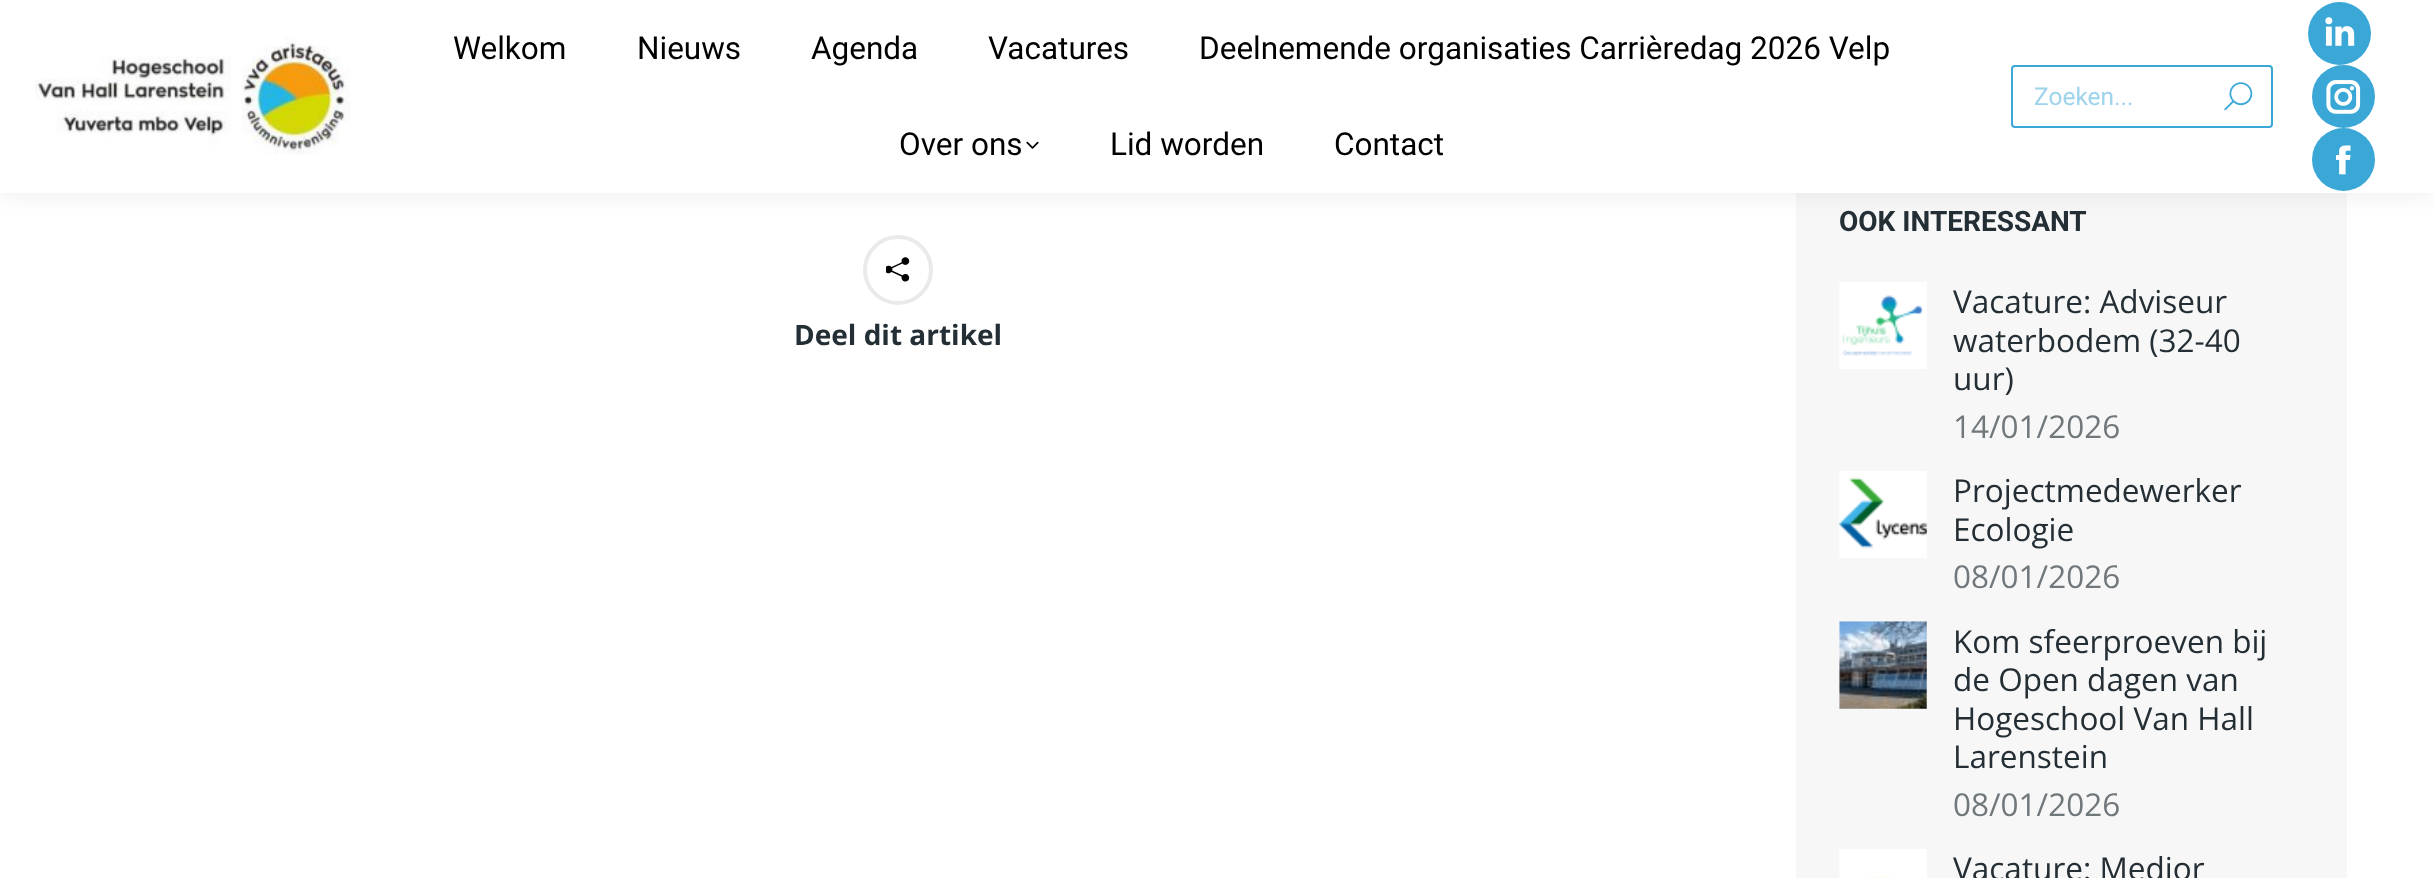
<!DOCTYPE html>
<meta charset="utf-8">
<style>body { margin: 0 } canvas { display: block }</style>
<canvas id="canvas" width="2434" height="878"></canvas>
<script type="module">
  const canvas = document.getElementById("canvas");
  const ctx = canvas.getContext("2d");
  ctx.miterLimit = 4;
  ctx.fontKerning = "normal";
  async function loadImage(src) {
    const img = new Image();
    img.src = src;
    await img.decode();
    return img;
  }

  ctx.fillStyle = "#ffffff";
  ctx.fillRect(0, 0, 2434, 878);
  ctx.fillStyle = "#f7f7f7";
  ctx.fillRect(1796, 193, 551, 685);
  ctx.fillStyle = "rgba(0, 0, 0, 0.07)";
  ctx.filter = "blur(13px)";
  ctx.beginPath();
  ctx.rect(-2, -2, 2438, 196);
  ctx.fill();
  ctx.filter = "none";
  ctx.fillStyle = "#ffffff";
  ctx.fillRect(0, 0, 2434, 193);
  ctx.drawImage(await loadImage("img1.png"), 35, 35, 315, 120);
  ctx.font = "31.5px Roboto";
  ctx.fillStyle = "#000000";
  ctx.fillText("Welkom", 453, 59);
  ctx.fillText("Nieuws", 637, 59);
  ctx.fillText("Agenda", 811, 59);
  ctx.fillText("Vacatures", 988, 59);
  ctx.fillText("Deelnemende organisaties Carrièredag 2026 Velp", 1199, 59);
  ctx.fillText("Over ons", 899, 155);
  ctx.drawImage(await loadImage("img2.png"), 1026, 141, 13, 8);
  ctx.fillText("Lid worden", 1110, 155);
  ctx.fillText("Contact", 1334, 155);
  ctx.beginPath();
  ctx.roundRect(2012, 66, 260, 61, 3);
  ctx.strokeStyle = "#3aa7d7";
  ctx.lineWidth = 2;
  ctx.stroke();
  ctx.font = "24.5px Roboto";
  ctx.fillStyle = "#9dd3eb";
  ctx.fillText("Zoeken...", 2034, 105);
  ctx.drawImage(await loadImage("img3.png"), 2224, 82, 29, 29);
  ctx.fillStyle = "#3aa7d7";
  ctx.beginPath();
  ctx.arc(2339.5, 33.5, 31.5, 0, Math.PI * 2);
  ctx.fill();
  ctx.drawImage(await loadImage("img4.png"), 2325, 17, 30, 29);
  ctx.beginPath();
  ctx.arc(2343.5, 96.5, 31.5, 0, Math.PI * 2);
  ctx.fill();
  ctx.drawImage(await loadImage("img5.png"), 2326, 80, 35, 34);
  ctx.beginPath();
  ctx.arc(2343.5, 159.5, 31.5, 0, Math.PI * 2);
  ctx.fill();
  ctx.drawImage(await loadImage("img6.png"), 2336, 145, 15, 30);
  ctx.beginPath();
  ctx.arc(898, 270, 33, 0, Math.PI * 2);
  ctx.strokeStyle = "#e9eaeb";
  ctx.lineWidth = 4;
  ctx.stroke();
  ctx.drawImage(await loadImage("img7.png"), 886, 257, 24, 25);
  ctx.font = "bold 28px Open Sans";
  ctx.fillStyle = "#242e35";
  ctx.fillText("Deel dit artikel", 794, 345);
  ctx.font = "bold 28px Roboto";
  ctx.fillText("OOK INTERESSANT", 1839, 231);
  ctx.drawImage(await loadImage("img8.png"), 1839, 282, 88, 87);
  ctx.font = "31.5px Open Sans";
  ctx.fillText("Vacature: Adviseur", 1953, 313);
  ctx.fillText("waterbodem (32-40", 1953, 352);
  ctx.fillText("uur)", 1953, 390);
  ctx.fillStyle = "#71787c";
  ctx.fillText("14/01/2026", 1953, 438);
  ctx.drawImage(await loadImage("img9.png"), 1839, 471, 88, 87);
  ctx.fillStyle = "#242e35";
  ctx.fillText("Projectmedewerker", 1953, 502);
  ctx.fillText("Ecologie", 1953, 541);
  ctx.fillStyle = "#71787c";
  ctx.fillText("08/01/2026", 1953, 588);
  ctx.drawImage(await loadImage("img10.png"), 1839, 621, 88, 88);
  ctx.fillStyle = "#242e35";
  ctx.fillText("Kom sfeerproeven bij", 1953, 653);
  ctx.fillText("de Open dagen van", 1953, 691);
  ctx.fillText("Hogeschool Van Hall", 1953, 730);
  ctx.fillText("Larenstein", 1953, 768);
  ctx.fillStyle = "#71787c";
  ctx.fillText("08/01/2026", 1953, 816);
  ctx.drawImage(await loadImage("img11.png"), 1839, 849, 88, 29);
  ctx.fillStyle = "#242e35";
  ctx.fillText("Vacature: Medior", 1953, 880);
</script>
